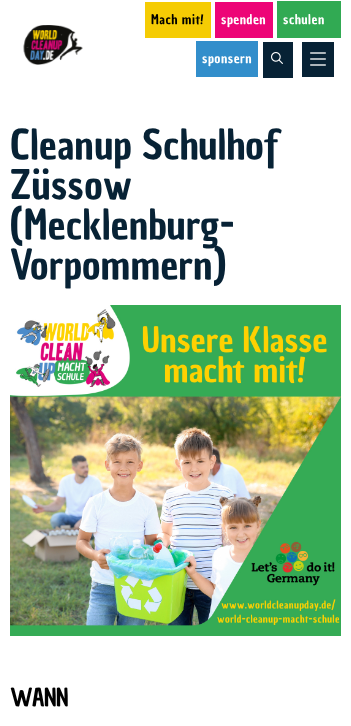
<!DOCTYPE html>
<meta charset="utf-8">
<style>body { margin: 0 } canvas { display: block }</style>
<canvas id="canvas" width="351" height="726"></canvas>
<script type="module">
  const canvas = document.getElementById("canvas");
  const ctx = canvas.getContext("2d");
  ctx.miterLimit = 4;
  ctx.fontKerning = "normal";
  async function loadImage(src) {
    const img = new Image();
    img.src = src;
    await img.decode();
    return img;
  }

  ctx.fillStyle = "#ffffff";
  ctx.fillRect(0, 0, 351, 726);
  ctx.drawImage(await loadImage("img1.png"), 23, 25, 60, 40);
  ctx.fillStyle = "#f5cc04";
  ctx.fillRect(145, 2, 66, 36);
  ctx.letterSpacing = "0.5px";
  ctx.font = "13px Chau Philomene One";
  ctx.fillStyle = "#000000";
  ctx.fillText("Mach mit!", 151, 24);
  ctx.fillStyle = "#ed0577";
  ctx.fillRect(215, 2, 58, 36);
  ctx.fillStyle = "#ffffff";
  ctx.fillText("spenden", 221, 24);
  ctx.fillStyle = "#31aa53";
  ctx.fillRect(277, 1, 64, 37);
  ctx.fillStyle = "#ffffff";
  ctx.fillText("schulen", 283, 24);
  ctx.fillStyle = "#328ecb";
  ctx.fillRect(196, 41, 62, 36);
  ctx.fillStyle = "#ffffff";
  ctx.fillText("sponsern", 202, 63);
  ctx.fillStyle = "#072235";
  ctx.fillRect(263, 42, 30, 36);
  ctx.drawImage(await loadImage("img2.png"), 271, 52, 12, 12);
  ctx.fillRect(302, 42, 32, 35);
  ctx.drawImage(await loadImage("img3.png"), 310, 52, 16, 14);
  ctx.letterSpacing = "0px";
  ctx.font = "40px Chau Philomene One";
  ctx.fillText("Cleanup Schulhof", 10, 159);
  ctx.fillText("Züssow", 10, 199);
  ctx.fillText("(Mecklenburg-", 10, 239);
  ctx.fillText("Vorpommern)", 10, 279);
  ctx.drawImage(await loadImage("img4.png"), 10, 305, 331, 331);
  ctx.letterSpacing = "-1px";
  ctx.font = "24px Chau Philomene One";
  ctx.fillStyle = "#000000";
  ctx.fillText("WANN", 10, 706);
</script>
